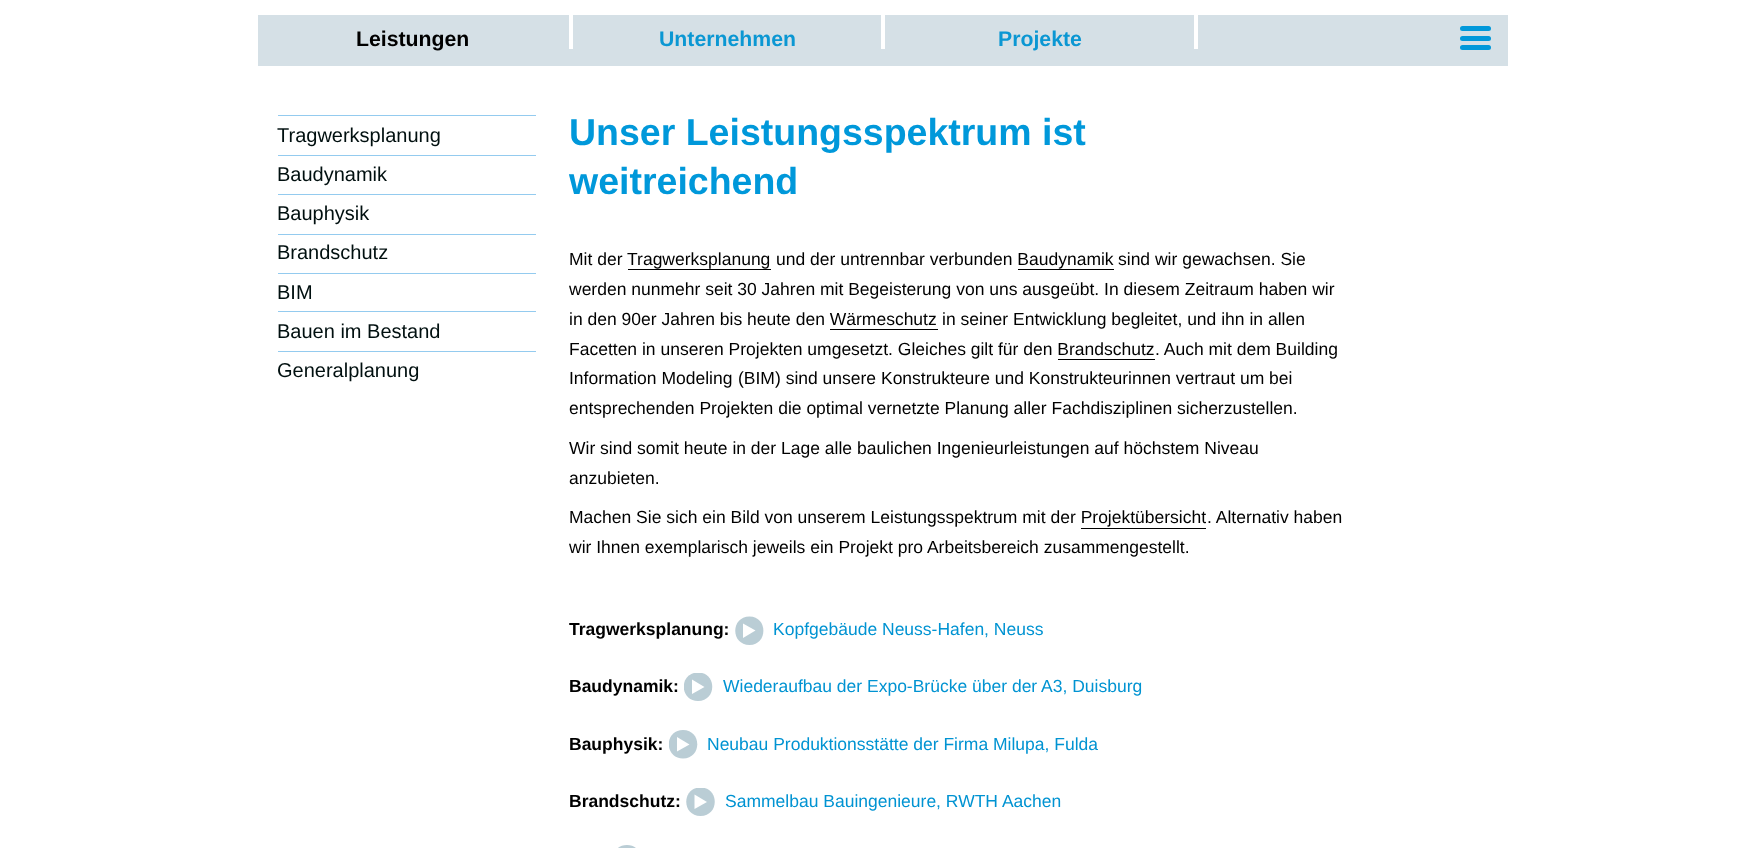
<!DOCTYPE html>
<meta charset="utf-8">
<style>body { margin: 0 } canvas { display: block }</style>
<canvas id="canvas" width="1763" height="848"></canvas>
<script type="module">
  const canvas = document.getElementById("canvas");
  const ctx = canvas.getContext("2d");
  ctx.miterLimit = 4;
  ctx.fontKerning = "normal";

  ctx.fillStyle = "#ffffff";
  ctx.fillRect(0, 0, 1763, 848);
  ctx.fillStyle = "#d5e0e6";
  ctx.fillRect(258, 15, 1250, 51);
  ctx.font = "bold 21.25px Liberation Sans";
  ctx.fillStyle = "#000000";
  ctx.fillText("Leistungen", 356, 46);
  ctx.fillStyle = "#ffffff";
  ctx.fillRect(569, 15, 4, 34);
  ctx.fillStyle = "#0b97d3";
  ctx.fillText("Unternehmen", 659, 46);
  ctx.fillStyle = "#ffffff";
  ctx.fillRect(881, 15, 4, 34);
  ctx.fillStyle = "#0b97d3";
  ctx.fillText("Projekte", 998, 46);
  ctx.fillStyle = "#ffffff";
  ctx.fillRect(1194, 15, 4, 34);
  ctx.fillStyle = "#0098da";
  ctx.beginPath();
  ctx.roundRect(1460, 26, 31, 5, 2.5);
  ctx.fill();
  ctx.beginPath();
  ctx.roundRect(1460, 36, 31, 5, 2.5);
  ctx.fill();
  ctx.beginPath();
  ctx.roundRect(1460, 45, 31, 5, 2.5);
  ctx.fill();
  ctx.fillStyle = "#94cbef";
  ctx.fillRect(278, 115, 258, 1);
  ctx.font = "20px Liberation Sans";
  ctx.fillStyle = "#000f0f";
  ctx.fillText("Tragwerksplanung", 277, 142);
  ctx.fillStyle = "#94cbef";
  ctx.fillRect(278, 155, 258, 1);
  ctx.fillStyle = "#000f0f";
  ctx.fillText("Baudynamik", 277, 181);
  ctx.fillStyle = "#94cbef";
  ctx.fillRect(278, 194, 258, 1);
  ctx.fillStyle = "#000f0f";
  ctx.fillText("Bauphysik", 277, 220);
  ctx.fillStyle = "#94cbef";
  ctx.fillRect(278, 234, 258, 1);
  ctx.fillStyle = "#000f0f";
  ctx.fillText("Brandschutz", 277, 259);
  ctx.fillStyle = "#94cbef";
  ctx.fillRect(278, 273, 258, 1);
  ctx.fillStyle = "#000f0f";
  ctx.fillText("BIM", 277, 299);
  ctx.fillStyle = "#94cbef";
  ctx.fillRect(278, 311, 258, 1);
  ctx.fillStyle = "#000f0f";
  ctx.fillText("Bauen im Bestand", 277, 338);
  ctx.fillStyle = "#94cbef";
  ctx.fillRect(278, 351, 258, 1);
  ctx.fillStyle = "#000f0f";
  ctx.fillText("Generalplanung", 277, 377);
  ctx.font = "bold 37.5px Liberation Sans";
  ctx.fillStyle = "#0098da";
  ctx.fillText("Unser Leistungsspektrum ist", 569, 145);
  ctx.fillText("weitreichend", 569, 194);
  ctx.font = "17.5px Liberation Sans";
  ctx.fillStyle = "#000000";
  ctx.fillText("Mit der Tragwerksplanung", 569, 265);
  ctx.fillText("und der untrennbar verbunden Baudynamik", 776, 265);
  ctx.fillText("sind wir gewachsen. Sie", 1118, 265);
  ctx.fillRect(628, 269, 143, 1);
  ctx.fillRect(1018, 269, 96, 1);
  ctx.fillText("werden nunmehr seit 30 Jahren mit Begeisterung von uns ausgeübt. In diesem Zeitraum haben wir", 569, 295);
  ctx.fillText("in den 90er Jahren bis heute den Wärmeschutz", 569, 325);
  ctx.fillText("in seiner Entwicklung begleitet, und ihn in allen", 942, 325);
  ctx.fillRect(830, 329, 108, 1);
  ctx.fillText("Facetten in unseren Projekten umgesetzt. Gleiches gilt für den Brandschutz", 569, 355);
  ctx.fillText(". Auch mit dem Building", 1155, 355);
  ctx.fillRect(1058, 359, 97, 1);
  ctx.fillText("Information Modeling", 569, 384);
  ctx.fillText("(BIM) sind unsere Konstrukteure und Konstrukteurinnen vertraut um bei", 738, 384);
  ctx.fillText("entsprechenden Projekten die optimal vernetzte Planung aller Fachdisziplinen sicherzustellen.", 569, 414);
  ctx.fillText("Wir sind somit heute in der Lage alle baulichen Ingenieurleistungen auf höchstem Niveau", 569, 454);
  ctx.fillText("anzubieten.", 569, 484);
  ctx.fillText("Machen Sie sich ein Bild von unserem Leistungsspektrum mit der Projektübersicht", 569, 523);
  ctx.fillText(". Alternativ haben", 1207, 523);
  ctx.fillRect(1081, 528, 125, 1);
  ctx.fillText("wir Ihnen exemplarisch jeweils ein Projekt pro Arbeitsbereich zusammengestellt.", 569, 553);
  ctx.font = "bold 17.5px Liberation Sans";
  ctx.fillText("Tragwerksplanung:", 569, 635);
  ctx.fillStyle = "#bacdd5";
  ctx.beginPath();
  ctx.moveTo(749.5, 645);
  ctx.bezierCurveTo(768, 645, 768, 616.5, 749.5, 616.5);
  ctx.bezierCurveTo(730.5, 616.5, 730.5, 645, 749.5, 645);
  ctx.fill();
  ctx.fillStyle = "#ffffff";
  ctx.beginPath();
  ctx.moveTo(755.5, 630.5);
  ctx.lineTo(743, 638);
  ctx.lineTo(743, 623.5);
  ctx.closePath();
  ctx.fill();
  ctx.font = "17.5px Liberation Sans";
  ctx.fillStyle = "#0093d2";
  ctx.fillText("Kopfgebäude Neuss-Hafen, Neuss", 773, 635);
  ctx.font = "bold 17.5px Liberation Sans";
  ctx.fillStyle = "#000000";
  ctx.fillText("Baudynamik:", 569, 692);
  ctx.save();
  ctx.beginPath();
  ctx.rect(684, 673, 29, 28);
  ctx.clip();
  ctx.fillStyle = "#bacdd5";
  ctx.beginPath();
  ctx.moveTo(698, 701);
  ctx.bezierCurveTo(717, 701, 717, 672.5, 698, 672.5);
  ctx.bezierCurveTo(679, 672.5, 679, 701, 698, 701);
  ctx.fill();
  ctx.restore();
  ctx.fillStyle = "#ffffff";
  ctx.beginPath();
  ctx.moveTo(704.5, 687);
  ctx.lineTo(692, 694);
  ctx.lineTo(692, 679.5);
  ctx.closePath();
  ctx.fill();
  ctx.font = "17.5px Liberation Sans";
  ctx.fillStyle = "#0093d2";
  ctx.fillText("Wiederaufbau der Expo-Brücke über der A3, Duisburg", 723, 692);
  ctx.font = "bold 17.5px Liberation Sans";
  ctx.fillStyle = "#000000";
  ctx.fillText("Bauphysik:", 569, 750);
  ctx.save();
  ctx.beginPath();
  ctx.rect(669, 730, 29, 29);
  ctx.clip();
  ctx.fillStyle = "#bacdd5";
  ctx.beginPath();
  ctx.moveTo(683, 758.5);
  ctx.bezierCurveTo(702, 758.5, 702, 730, 683, 730);
  ctx.bezierCurveTo(664, 730, 664, 758.5, 683, 758.5);
  ctx.fill();
  ctx.restore();
  ctx.fillStyle = "#ffffff";
  ctx.beginPath();
  ctx.moveTo(689.5, 744.5);
  ctx.lineTo(677, 751.5);
  ctx.lineTo(677, 737);
  ctx.closePath();
  ctx.fill();
  ctx.font = "17.5px Liberation Sans";
  ctx.fillStyle = "#0093d2";
  ctx.fillText("Neubau Produktionsstätte der Firma Milupa, Fulda", 707, 750);
  ctx.font = "bold 17.5px Liberation Sans";
  ctx.fillStyle = "#000000";
  ctx.fillText("Brandschutz:", 569, 807);
  ctx.save();
  ctx.beginPath();
  ctx.rect(686, 788, 29, 28);
  ctx.clip();
  ctx.fillStyle = "#bacdd5";
  ctx.beginPath();
  ctx.moveTo(700.5, 816);
  ctx.bezierCurveTo(719.5, 816, 719.5, 787.5, 700.5, 787.5);
  ctx.bezierCurveTo(681.5, 787.5, 681.5, 816, 700.5, 816);
  ctx.fill();
  ctx.restore();
  ctx.fillStyle = "#ffffff";
  ctx.beginPath();
  ctx.moveTo(707, 802);
  ctx.lineTo(694.5, 809);
  ctx.lineTo(694.5, 794.5);
  ctx.closePath();
  ctx.fill();
  ctx.font = "17.5px Liberation Sans";
  ctx.fillStyle = "#0093d2";
  ctx.fillText("Sammelbau Bauingenieure, RWTH Aachen", 725, 807);
  ctx.fillStyle = "#bacdd5";
  ctx.beginPath();
  ctx.moveTo(627, 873.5);
  ctx.bezierCurveTo(645.5, 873.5, 645.5, 845, 627, 845);
  ctx.bezierCurveTo(608, 845, 608, 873.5, 627, 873.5);
  ctx.fill();
</script>
